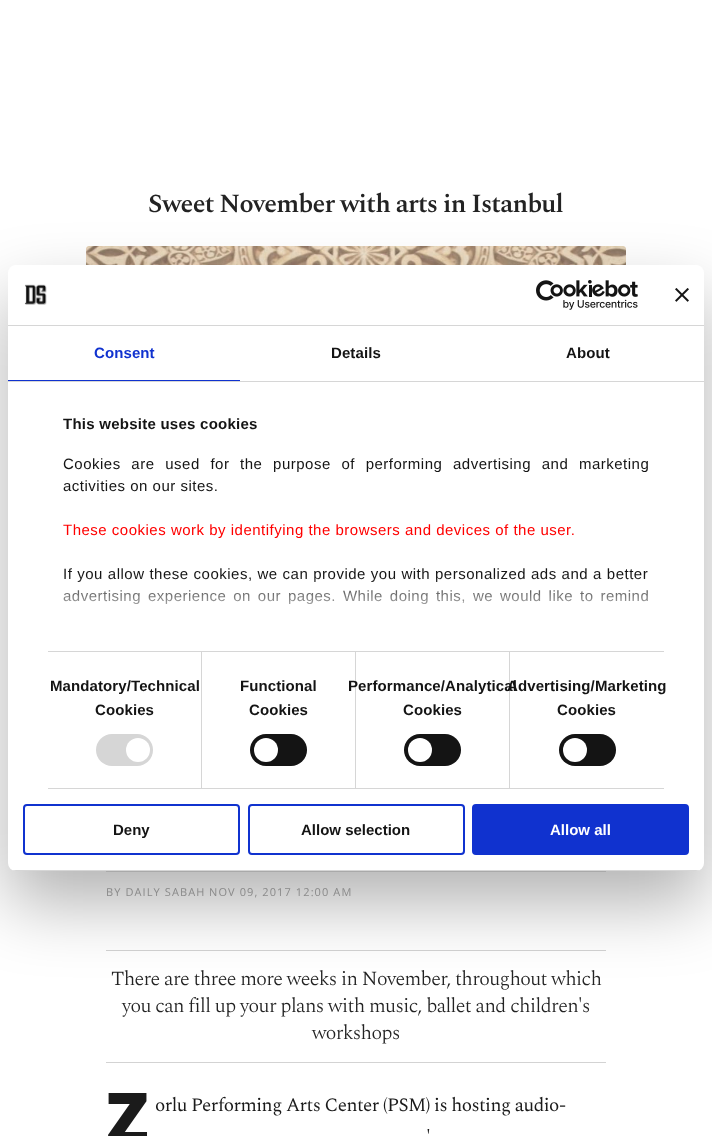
<!DOCTYPE html>
<meta charset="utf-8">
<style>body { margin: 0 } canvas { display: block }</style>
<canvas id="canvas" width="712" height="1136"></canvas>
<script type="module">
  const canvas = document.getElementById("canvas");
  const ctx = canvas.getContext("2d");
  ctx.miterLimit = 4;
  ctx.fontKerning = "normal";
  async function loadImage(src) {
    const img = new Image();
    img.src = src;
    await img.decode();
    return img;
  }
  let gradient;

  ctx.fillStyle = "#ffffff";
  ctx.fillRect(0, 0, 712, 1136);
  ctx.letterSpacing = "-0.8px";
  ctx.font = "600 26px Spectral";
  ctx.fillStyle = "#232323";
  ctx.fillText("Sweet November with arts in Istanbul", 148, 212);
  ctx.drawImage(await loadImage("img1.png"), 86, 246, 540, 19);
  ctx.fillStyle = "#e2e2e2";
  ctx.fillRect(106, 871, 500, 1);
  ctx.letterSpacing = "1.1px";
  ctx.font = "11px Open Sans";
  ctx.fillStyle = "#aaaaaa";
  ctx.fillText("BY DAILY SABAH", 106, 896);
  ctx.fillText("NOV 09, 2017 12:00 AM", 209, 896);
  ctx.fillStyle = "#d3d3d3";
  ctx.fillRect(106, 950, 500, 1);
  ctx.fillRect(106, 1062, 500, 1);
  ctx.letterSpacing = "-0.6px";
  ctx.font = "300 20px Spectral";
  ctx.fillStyle = "#232323";
  ctx.fillText("There are three more weeks in November, throughout which", 111, 985);
  ctx.fillText("you can fill up your plans with music, ballet and children's", 122, 1012);
  ctx.fillText("workshops", 312, 1039);
  ctx.letterSpacing = "-0.57px";
  ctx.font = "900 70px Noto Sans";
  ctx.fillStyle = "#1b1b1b";
  ctx.fillText("Z", 106, 1143);
  ctx.font = "19px Spectral";
  ctx.fillText("orlu Performing Arts Center (PSM) is hosting audio-", 155, 1111);
  ctx.fillText("'", 426, 1143);
  ctx.fillStyle = "rgba(0, 0, 0, 0.3)";
  ctx.filter = "blur(34px)";
  ctx.beginPath();
  ctx.roundRect(8, 297, 696, 606, 8);
  ctx.fill();
  ctx.filter = "none";
  ctx.fillStyle = "#ffffff";
  ctx.beginPath();
  ctx.roundRect(8, 265, 696, 606, 8);
  ctx.fill();
  ctx.fillStyle = "#d6d6d6";
  ctx.fillRect(8, 325, 696, 1);
  ctx.drawImage(await loadImage("img2.png"), 24, 284, 23, 21);
  ctx.drawImage(await loadImage("img3.png"), 536, 280, 102, 30);
  ctx.drawImage(await loadImage("img4.png"), 675, 288, 14, 14);
  ctx.fillRect(8, 381, 696, 1);
  ctx.fillStyle = "#1032cf";
  ctx.fillRect(8, 380, 232, 1);
  ctx.letterSpacing = "0.1px";
  ctx.font = "bold 15px Liberation Sans";
  ctx.fillText("Consent", 94, 358);
  ctx.fillStyle = "#141414";
  ctx.fillText("Details", 331, 358);
  ctx.fillText("About", 566, 358);
  ctx.fillStyle = "#d6d6d6";
  ctx.fillRect(48, 651, 616, 1);
  ctx.letterSpacing = "0.25px";
  ctx.fillStyle = "#141414";
  ctx.fillText("This website uses cookies", 63, 429);
  ctx.letterSpacing = "0.5px";
  ctx.wordSpacing = "6px";
  ctx.font = "15px Liberation Sans";
  ctx.fillText("Cookies are used for the purpose of performing advertising and marketing", 63, 469);
  ctx.wordSpacing = "0px";
  ctx.fillText("activities on our sites.", 63, 491);
  ctx.fillStyle = "#ff0000";
  ctx.fillText("These cookies work by identifying the browsers and devices of the user.", 63, 535);
  ctx.wordSpacing = "0.25px";
  ctx.fillStyle = "#141414";
  ctx.fillText("If you allow these cookies, we can provide you with personalized ads and a better", 63, 579);
  ctx.wordSpacing = "2.25px";
  ctx.fillText("advertising experience on our pages. While doing this, we would like to remind", 63, 601);
  gradient = ctx.createLinearGradient(350, 651, 350, 576);
  gradient.addColorStop(0, "#ffffff");
  gradient.addColorStop(0.5, "rgba(255, 255, 255, 0.8)");
  gradient.addColorStop(1, "rgba(255, 255, 255, 0)");
  ctx.fillStyle = gradient;
  ctx.fillRect(63, 577, 585, 28);
  ctx.fillStyle = "#d6d6d6";
  ctx.fillRect(48, 788, 616, 1);
  ctx.fillRect(201, 652, 1, 136);
  ctx.letterSpacing = "0.1px";
  ctx.wordSpacing = "0px";
  ctx.font = "bold 15px Liberation Sans";
  ctx.fillStyle = "#141414";
  ctx.fillText("Mandatory/Technical", 50, 691);
  ctx.fillText("Cookies", 95, 715);
  ctx.fillStyle = "#d6d6d6";
  ctx.beginPath();
  ctx.roundRect(96, 734, 57, 32, 16);
  ctx.fill();
  ctx.fillStyle = "#ffffff";
  ctx.beginPath();
  ctx.arc(138, 750, 12, 0, Math.PI * 2);
  ctx.fill();
  ctx.fillStyle = "#d6d6d6";
  ctx.fillRect(355, 652, 1, 136);
  ctx.fillStyle = "#141414";
  ctx.fillText("Functional", 240, 691);
  ctx.fillText("Cookies", 249, 715);
  ctx.beginPath();
  ctx.roundRect(250, 734, 57, 32, 16);
  ctx.fill();
  ctx.fillStyle = "#ffffff";
  ctx.beginPath();
  ctx.arc(266, 750, 12, 0, Math.PI * 2);
  ctx.fill();
  ctx.fillStyle = "#d6d6d6";
  ctx.fillRect(509, 652, 1, 136);
  ctx.fillStyle = "#141414";
  ctx.fillText("Performance/Analytical", 348, 691);
  ctx.fillText("Cookies", 403, 715);
  ctx.beginPath();
  ctx.roundRect(404, 734, 57, 32, 16);
  ctx.fill();
  ctx.fillStyle = "#ffffff";
  ctx.beginPath();
  ctx.arc(420, 750, 12, 0, Math.PI * 2);
  ctx.fill();
  ctx.fillStyle = "#141414";
  ctx.fillText("Advertising/Marketing", 507, 691);
  ctx.fillText("Cookies", 557, 715);
  ctx.beginPath();
  ctx.roundRect(559, 734, 57, 32, 16);
  ctx.fill();
  ctx.fillStyle = "#ffffff";
  ctx.beginPath();
  ctx.arc(575, 750, 12, 0, Math.PI * 2);
  ctx.fill();
  ctx.save();
  ctx.beginPath();
  ctx.roundRect(8, 265, 696, 606, 8);
  ctx.clip();
  ctx.fillStyle = "#d6d6d6";
  ctx.fillRect(8, 870, 696, 1);
  ctx.restore();
  ctx.beginPath();
  ctx.roundRect(24, 805, 215, 49, 3);
  ctx.strokeStyle = "#1032cf";
  ctx.lineWidth = 2;
  ctx.stroke();
  ctx.letterSpacing = "0px";
  ctx.fillStyle = "#141414";
  ctx.fillText("Deny", 113, 835);
  ctx.beginPath();
  ctx.roundRect(249, 805, 215, 49, 3);
  ctx.stroke();
  ctx.fillText("Allow selection", 301, 835);
  ctx.fillStyle = "#1032cf";
  ctx.beginPath();
  ctx.roundRect(473, 805, 215, 49, 3);
  ctx.fill();
  ctx.stroke();
  ctx.fillStyle = "#ffffff";
  ctx.fillText("Allow all", 550, 835);
</script>
